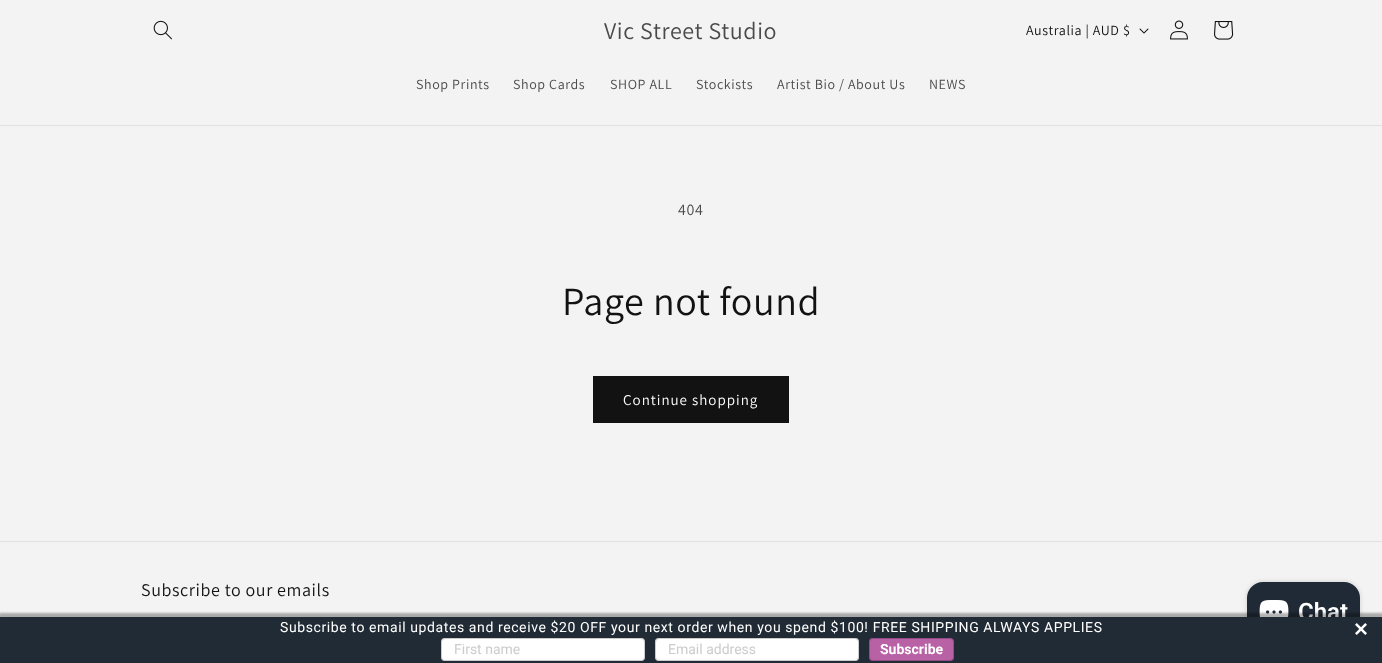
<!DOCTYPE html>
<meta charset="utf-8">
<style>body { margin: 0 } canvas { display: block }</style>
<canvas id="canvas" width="1382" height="663"></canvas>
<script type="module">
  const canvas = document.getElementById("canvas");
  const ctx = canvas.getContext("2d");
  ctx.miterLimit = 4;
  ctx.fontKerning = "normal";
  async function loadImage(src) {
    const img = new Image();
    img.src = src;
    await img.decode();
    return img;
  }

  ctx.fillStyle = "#f3f3f3";
  ctx.fillRect(0, 0, 1382, 663);
  ctx.fillStyle = "#e1e1e1";
  ctx.fillRect(0, 125, 1382, 1);
  ctx.drawImage(await loadImage("img1.png"), 153, 20, 19, 20);
  ctx.letterSpacing = "0.6px";
  ctx.font = "24px Assistant";
  ctx.fillStyle = "#4a4a4a";
  ctx.fillText("Vic Street Studio", 604, 39);
  ctx.font = "14px Assistant";
  ctx.fillStyle = "#121212";
  ctx.fillText("Australia | AUD $", 1026, 35);
  ctx.drawImage(await loadImage("img2.png"), 1139, 28, 10, 6);
  ctx.drawImage(await loadImage("img3.png"), 1170, 20, 18, 20);
  ctx.drawImage(await loadImage("img4.png"), 1214, 21, 20, 19);
  ctx.fillStyle = "#4a4a4a";
  ctx.fillText("Shop Prints", 416, 89);
  ctx.fillText("Shop Cards", 513, 89);
  ctx.fillText("SHOP ALL", 610, 89);
  ctx.fillText("Stockists", 696, 89);
  ctx.fillText("Artist Bio / About Us", 777, 89);
  ctx.fillText("NEWS", 929, 89);
  ctx.font = "16px Assistant";
  ctx.fillText("404", 678, 215);
  ctx.font = "40px Assistant";
  ctx.fillStyle = "#121212";
  ctx.fillText("Page not found", 562, 315);
  ctx.fillRect(593, 376, 196, 47);
  ctx.letterSpacing = "1px";
  ctx.font = "15px Assistant";
  ctx.fillStyle = "#ffffff";
  ctx.fillText("Continue shopping", 623, 405);
  ctx.fillStyle = "#e1e1e1";
  ctx.fillRect(0, 541, 1382, 1);
  ctx.letterSpacing = "0.6px";
  ctx.font = "18px Assistant";
  ctx.fillStyle = "#121212";
  ctx.fillText("Subscribe to our emails", 141, 596);
  ctx.fillStyle = "rgba(0, 0, 0, 0.15)";
  ctx.filter = "blur(2.5px)";
  ctx.beginPath();
  ctx.roundRect(1247, 582, 113, 60, 16);
  ctx.fill();
  ctx.filter = "none";
  ctx.fillStyle = "#202a36";
  ctx.beginPath();
  ctx.roundRect(1247, 582, 113, 60, 16);
  ctx.fill();
  ctx.drawImage(await loadImage("img5.png"), 1259, 600, 30, 17);
  ctx.letterSpacing = "0px";
  ctx.font = "600 24px Roboto";
  ctx.fillStyle = "#ffffff";
  ctx.fillText("Chat", 1298, 620);
  ctx.fillStyle = "rgba(0, 0, 0, 0.3)";
  ctx.filter = "blur(1px)";
  ctx.beginPath();
  ctx.rect(-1, 613, 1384, 48);
  ctx.fill();
  ctx.filter = "none";
  ctx.fillStyle = "#212b35";
  ctx.fillRect(0, 617, 1382, 46);
  ctx.letterSpacing = "0.6px";
  ctx.font = "14px Roboto";
  ctx.fillStyle = "#ffffff";
  ctx.fillText("Subscribe to email updates and receive $20 OFF your next order when you spend $100! FREE SHIPPING ALWAYS APPLIES", 280, 632);
  ctx.beginPath();
  ctx.roundRect(441, 638, 204, 23, 4);
  ctx.fill();
  ctx.beginPath();
  ctx.roundRect(441.5, 638.5, 203, 22, 3.5);
  ctx.strokeStyle = "rgba(0, 0, 0, 0.2)";
  ctx.stroke();
  ctx.letterSpacing = "0px";
  ctx.fillStyle = "#cccccc";
  ctx.fillText("First name", 454, 654);
  ctx.fillStyle = "#ffffff";
  ctx.beginPath();
  ctx.roundRect(655, 638, 204, 23, 4);
  ctx.fill();
  ctx.beginPath();
  ctx.roundRect(655.5, 638.5, 203, 22, 3.5);
  ctx.stroke();
  ctx.fillStyle = "#cccccc";
  ctx.fillText("Email address", 668, 654);
  ctx.fillStyle = "#b861a5";
  ctx.beginPath();
  ctx.roundRect(869, 638, 85, 23, 4);
  ctx.fill();
  ctx.beginPath();
  ctx.roundRect(869.5, 638.5, 84, 22, 3.5);
  ctx.stroke();
  ctx.font = "bold 14px Roboto";
  ctx.fillStyle = "#ffffff";
  ctx.fillText("Subscribe", 880, 654);
  ctx.drawImage(await loadImage("img6.png"), 1355, 623, 12, 12);
</script>
